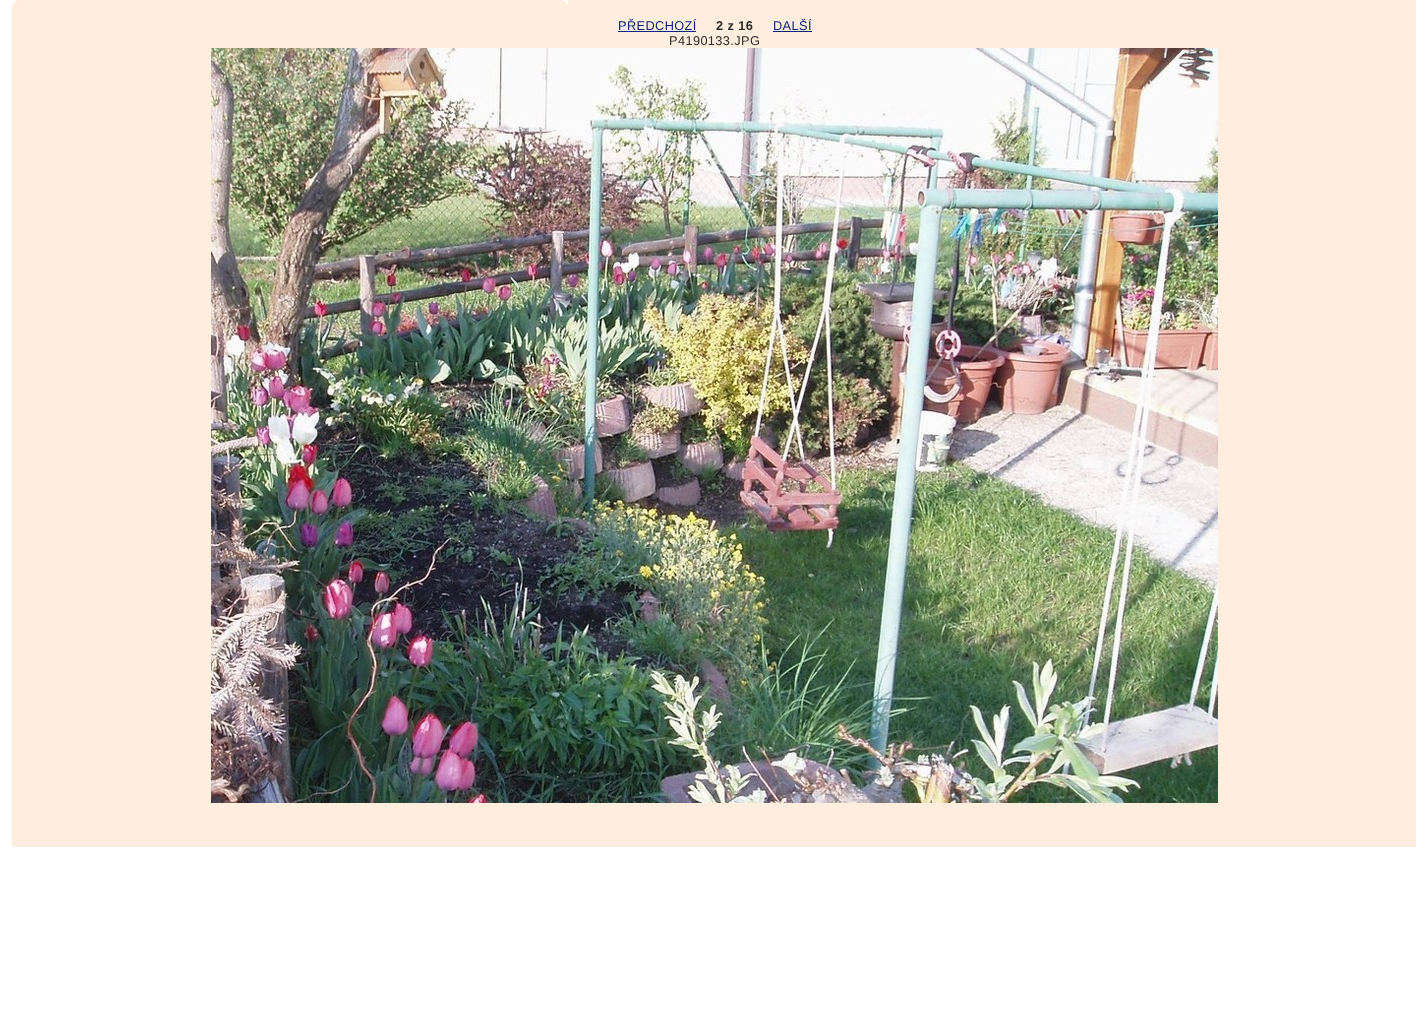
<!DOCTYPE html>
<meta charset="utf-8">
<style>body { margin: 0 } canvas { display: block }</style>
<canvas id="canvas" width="1426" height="1011"></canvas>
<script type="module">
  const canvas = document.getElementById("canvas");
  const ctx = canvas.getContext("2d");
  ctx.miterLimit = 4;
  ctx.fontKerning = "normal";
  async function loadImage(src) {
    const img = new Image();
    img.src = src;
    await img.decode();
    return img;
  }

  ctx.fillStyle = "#ffffff";
  ctx.fillRect(0, 0, 1426, 1011);
  ctx.fillStyle = "#ffeede";
  ctx.fillRect(12, 0, 1404, 847);
  ctx.drawImage(await loadImage("img1.png"), 12, 0, 556, 8);
  ctx.letterSpacing = "0.4px";
  ctx.font = "12.75px Liberation Sans";
  ctx.fillStyle = "#092674";
  ctx.fillText("PŘEDCHOZÍ", 618, 30);
  ctx.fillRect(618, 31, 78, 1);
  ctx.font = "bold 12.75px Liberation Sans";
  ctx.fillStyle = "#2c2c2c";
  ctx.fillText("2 z 16", 716, 30);
  ctx.font = "12.75px Liberation Sans";
  ctx.fillStyle = "#092674";
  ctx.fillText("DALŠÍ", 773, 30);
  ctx.fillRect(773, 31, 39, 1);
  ctx.fillStyle = "#2c2c2c";
  ctx.fillText("P4190133.JPG", 669, 45);
  ctx.drawImage(await loadImage("img2.png"), 211, 48, 1007, 755);
</script>
